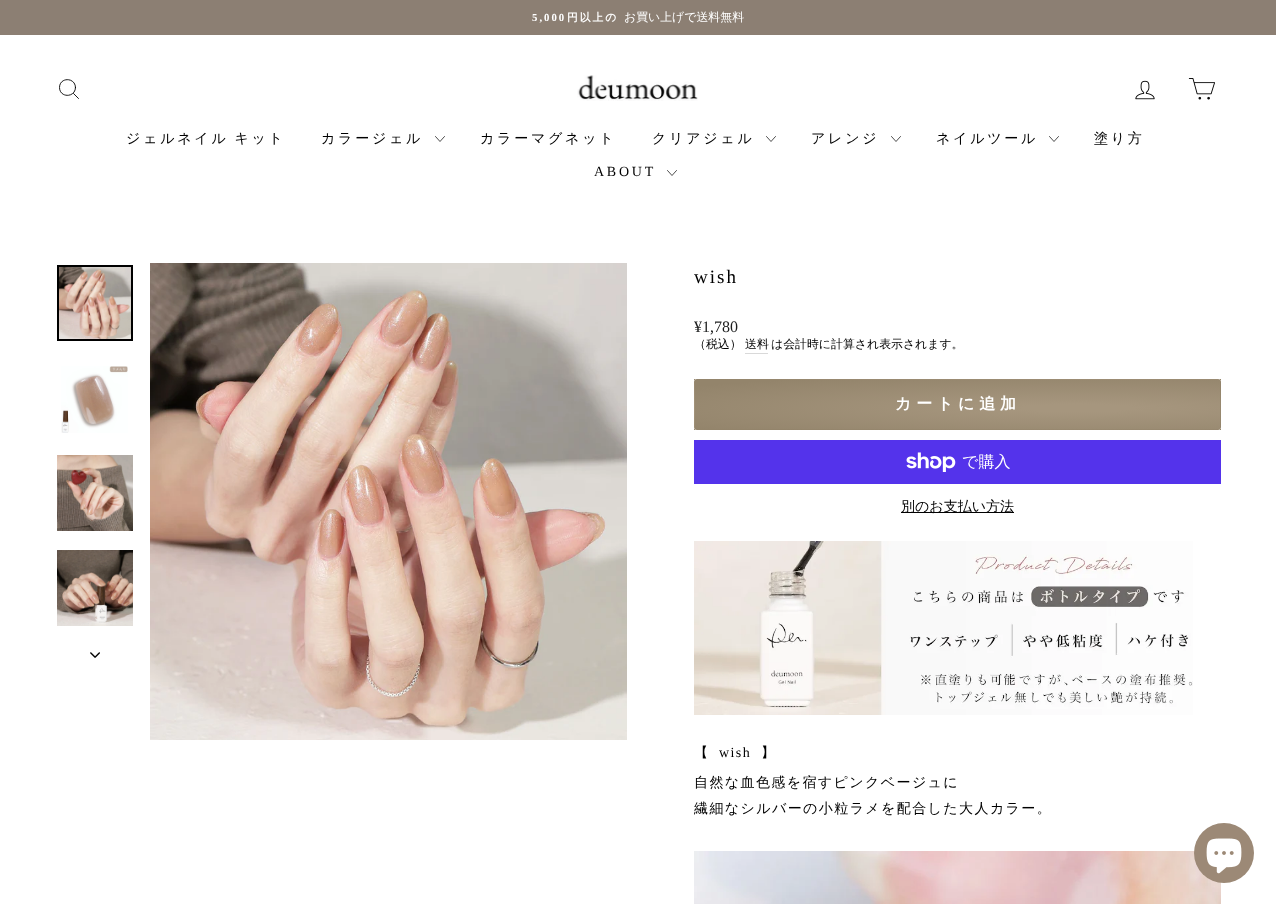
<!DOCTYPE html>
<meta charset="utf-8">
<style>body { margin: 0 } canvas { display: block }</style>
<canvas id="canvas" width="1276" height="904"></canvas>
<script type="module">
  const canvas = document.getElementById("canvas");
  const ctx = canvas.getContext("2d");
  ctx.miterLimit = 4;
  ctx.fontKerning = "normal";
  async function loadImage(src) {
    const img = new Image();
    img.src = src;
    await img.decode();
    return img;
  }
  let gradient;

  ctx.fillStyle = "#ffffff";
  ctx.fillRect(0, 0, 1276, 904);
  ctx.fillStyle = "#8c7f73";
  ctx.fillRect(0, 0, 1276, 35);
  ctx.letterSpacing = "2px";
  ctx.font = "bold 10.75px Liberation Serif";
  ctx.fillStyle = "#ffffff";
  ctx.fillText("5,000", 532, 21);
  ctx.font = "bold 10.75px WenQuanYi Zen Hei";
  ctx.fillText("円以上の", 567, 21);
  ctx.letterSpacing = "0px";
  ctx.font = "500 11.9px WenQuanYi Zen Hei";
  ctx.fillText("お買い上げで送料無料", 624, 21);
  ctx.beginPath();
  ctx.moveTo(75.5, 87.5);
  ctx.bezierCurveTo(75.5, 98, 59.5, 98, 59.5, 87.5);
  ctx.bezierCurveTo(59.5, 77, 75.5, 77, 75.5, 87.5);
  ctx.closePath();
  ctx.moveTo(78.5, 98.5);
  ctx.lineTo(73.5, 93.5);
  ctx.strokeStyle = "#000000";
  ctx.lineWidth = 0.9;
  ctx.lineCap = "round";
  ctx.lineJoin = "round";
  ctx.stroke();
  ctx.drawImage(await loadImage("img1.png"), 577, 75, 121, 26);
  ctx.drawImage(await loadImage("img2.png"), 1135, 80, 20, 20);
  ctx.drawImage(await loadImage("img3.png"), 1188, 78, 27, 22);
  ctx.letterSpacing = "2.75px";
  ctx.wordSpacing = "-1px";
  ctx.font = "500 14px WenQuanYi Zen Hei";
  ctx.fillStyle = "#000000";
  ctx.fillText("ジェルネイル キット", 126, 143);
  ctx.wordSpacing = "0px";
  ctx.fillText("カラージェル", 321, 143);
  ctx.beginPath();
  ctx.moveTo(435.5, 136.5);
  ctx.lineTo(440, 141.5);
  ctx.lineTo(444.5, 136.5);
  ctx.lineWidth = 0.7;
  ctx.stroke();
  ctx.fillText("カラーマグネット", 480, 143);
  ctx.fillText("クリアジェル", 652, 143);
  ctx.beginPath();
  ctx.moveTo(766.5, 136.5);
  ctx.lineTo(771, 141.5);
  ctx.lineTo(775.5, 136.5);
  ctx.stroke();
  ctx.fillText("アレンジ", 811, 143);
  ctx.beginPath();
  ctx.moveTo(891.5, 136.5);
  ctx.lineTo(896, 141.5);
  ctx.lineTo(900.5, 136.5);
  ctx.stroke();
  ctx.fillText("ネイルツール", 936, 143);
  ctx.beginPath();
  ctx.moveTo(1049.5, 136.5);
  ctx.lineTo(1054, 141.5);
  ctx.lineTo(1058.5, 136.5);
  ctx.stroke();
  ctx.fillText("塗り方", 1094, 143);
  ctx.font = "14px Liberation Serif";
  ctx.fillText("ABOUT", 594, 176);
  ctx.beginPath();
  ctx.moveTo(667.5, 170.5);
  ctx.lineTo(672, 175.5);
  ctx.lineTo(676.5, 170.5);
  ctx.stroke();
  ctx.drawImage(await loadImage("img4.png"), 59, 267, 72, 72);
  ctx.lineWidth = 2;
  ctx.lineJoin = "miter";
  ctx.strokeRect(58, 266, 74, 74);
  ctx.drawImage(await loadImage("img5.png"), 61, 366, 67, 67);
  ctx.drawImage(await loadImage("img6.png"), 57, 455, 76, 76);
  ctx.drawImage(await loadImage("img7.png"), 57, 550, 76, 76);
  ctx.drawImage(await loadImage("img8.png"), 90, 652, 10, 6);
  ctx.drawImage(await loadImage("img9.png"), 150, 263, 477, 477);
  ctx.letterSpacing = "2px";
  ctx.font = "19px Liberation Serif";
  ctx.fillText("wish", 694, 283);
  ctx.letterSpacing = "0px";
  ctx.font = "16px Liberation Serif";
  ctx.fillStyle = "#1c1d1d";
  ctx.fillText("¥1,780", 694, 332);
  ctx.font = "500 11.9px WenQuanYi Zen Hei";
  ctx.fillStyle = "#000000";
  ctx.fillText("（税込）", 694, 348);
  ctx.fillStyle = "#d9d9d9";
  ctx.fillRect(745, 353, 23, 1);
  ctx.fillStyle = "#000000";
  ctx.fillText("送料", 745, 348);
  ctx.fillText("は会計時に計算され表示されます。", 771, 348);
  gradient = ctx.createRadialGradient(553, 4989.18, 0, 553, 4989.18, 542);
  gradient.addColorStop(0.1, "#a6967e");
  gradient.addColorStop(0.9, "#93846b");
  ctx.fillStyle = gradient;
  ctx.beginPath();
  ctx.rect(694, 379, 1, 1);
  ctx.save();
  ctx.clip();
  ctx.scale(1, 39 / 542);
  ctx.fillRect(0, 0, 1276, 12564);
  ctx.restore();
  ctx.save();
  ctx.beginPath();
  ctx.roundRect(694, 379, 527, 51, 3);
  ctx.clip();
  gradient = ctx.createRadialGradient(1078, 4989.18, 0, 1078, 4989.18, 542);
  gradient.addColorStop(0.1, "#a6967e");
  gradient.addColorStop(0.9, "#93846b");
  ctx.fillStyle = gradient;
  ctx.beginPath();
  ctx.rect(695, 379, 525, 1);
  ctx.save();
  ctx.clip();
  ctx.scale(1, 39 / 542);
  ctx.fillRect(0, 0, 1276, 12564);
  ctx.restore();
  ctx.restore();
  gradient = ctx.createRadialGradient(1603, 4989.18, 0, 1603, 4989.18, 542);
  gradient.addColorStop(0.1, "#a6967e");
  gradient.addColorStop(0.9, "#93846b");
  ctx.fillStyle = gradient;
  ctx.beginPath();
  ctx.rect(1220, 379, 1, 1);
  ctx.save();
  ctx.clip();
  ctx.scale(1, 39 / 542);
  ctx.fillRect(0, 0, 1276, 12564);
  ctx.restore();
  ctx.save();
  ctx.beginPath();
  ctx.roundRect(694, 379, 527, 51, 3);
  ctx.clip();
  gradient = ctx.createRadialGradient(553, 5670.15, 0, 553, 5670.15, 542);
  gradient.addColorStop(0.1, "#a6967e");
  gradient.addColorStop(0.9, "#93846b");
  ctx.fillStyle = gradient;
  ctx.beginPath();
  ctx.rect(694, 380, 1, 49);
  ctx.save();
  ctx.clip();
  ctx.scale(1, 39 / 542);
  ctx.fillRect(0, 0, 1276, 12564);
  ctx.restore();
  ctx.restore();
  gradient = ctx.createRadialGradient(1078, 5670.15, 0, 1078, 5670.15, 542);
  gradient.addColorStop(0.1, "#a6967e");
  gradient.addColorStop(0.9, "#93846b");
  ctx.fillStyle = gradient;
  ctx.beginPath();
  ctx.rect(695, 380, 525, 49);
  ctx.save();
  ctx.clip();
  ctx.scale(1, 39 / 542);
  ctx.fillRect(0, 0, 1276, 12564);
  ctx.restore();
  ctx.save();
  ctx.beginPath();
  ctx.roundRect(694, 379, 527, 51, 3);
  ctx.clip();
  gradient = ctx.createRadialGradient(1603, 5670.15, 0, 1603, 5670.15, 542);
  gradient.addColorStop(0.1, "#a6967e");
  gradient.addColorStop(0.9, "#93846b");
  ctx.fillStyle = gradient;
  ctx.beginPath();
  ctx.rect(1220, 380, 1, 49);
  ctx.save();
  ctx.clip();
  ctx.scale(1, 39 / 542);
  ctx.fillRect(0, 0, 1276, 12564);
  ctx.restore();
  ctx.restore();
  gradient = ctx.createRadialGradient(553, 6351.13, 0, 553, 6351.13, 542);
  gradient.addColorStop(0.1, "#a6967e");
  gradient.addColorStop(0.9, "#93846b");
  ctx.fillStyle = gradient;
  ctx.beginPath();
  ctx.rect(694, 429, 1, 1);
  ctx.save();
  ctx.clip();
  ctx.scale(1, 39 / 542);
  ctx.fillRect(0, 0, 1276, 12564);
  ctx.restore();
  ctx.save();
  ctx.beginPath();
  ctx.roundRect(694, 379, 527, 51, 3);
  ctx.clip();
  gradient = ctx.createRadialGradient(1078, 6351.13, 0, 1078, 6351.13, 542);
  gradient.addColorStop(0.1, "#a6967e");
  gradient.addColorStop(0.9, "#93846b");
  ctx.fillStyle = gradient;
  ctx.beginPath();
  ctx.rect(695, 429, 525, 1);
  ctx.save();
  ctx.clip();
  ctx.scale(1, 39 / 542);
  ctx.fillRect(0, 0, 1276, 12564);
  ctx.restore();
  ctx.restore();
  gradient = ctx.createRadialGradient(1603, 6351.13, 0, 1603, 6351.13, 542);
  gradient.addColorStop(0.1, "#a6967e");
  gradient.addColorStop(0.9, "#93846b");
  ctx.fillStyle = gradient;
  ctx.beginPath();
  ctx.rect(1220, 429, 1, 1);
  ctx.save();
  ctx.clip();
  ctx.scale(1, 39 / 542);
  ctx.fillRect(0, 0, 1276, 12564);
  ctx.restore();
  ctx.letterSpacing = "4.75px";
  ctx.font = "bold 16px WenQuanYi Zen Hei";
  ctx.fillStyle = "#ffffff";
  ctx.fillText("カートに追加", 895, 409);
  ctx.fillStyle = "#5433eb";
  ctx.fillRect(694, 440, 527, 44);
  ctx.drawImage(await loadImage("img10.png"), 906, 452, 50, 20);
  ctx.letterSpacing = "0px";
  ctx.font = "500 16px WenQuanYi Zen Hei";
  ctx.fillStyle = "#ffffff";
  ctx.fillText("で購入", 962, 467);
  ctx.fillStyle = "#000000";
  ctx.fillRect(901, 512, 113, 1);
  ctx.font = "500 14px WenQuanYi Zen Hei";
  ctx.fillText("別のお支払い方法", 901, 511);
  ctx.drawImage(await loadImage("img11.png"), 694, 541, 499, 174);
  ctx.letterSpacing = "1.4px";
  ctx.fillText("【", 694, 757);
  ctx.font = "14px Liberation Serif";
  ctx.fillText("wish", 719, 757);
  ctx.font = "500 14px WenQuanYi Zen Hei";
  ctx.fillText("】", 761, 757);
  ctx.fillText("自然な血色感を宿すピンクベージュに", 694, 787);
  ctx.fillText("繊細なシルバーの小粒ラメを配合した大人カラー。", 694, 813);
  ctx.drawImage(await loadImage("img12.png"), 694, 851, 527, 53);
  ctx.fillStyle = "#9c8976";
  ctx.beginPath();
  ctx.arc(1224, 853, 30, 0, Math.PI * 2);
  ctx.fill();
  ctx.drawImage(await loadImage("img13.png"), 1206, 838, 36, 36);
</script>
